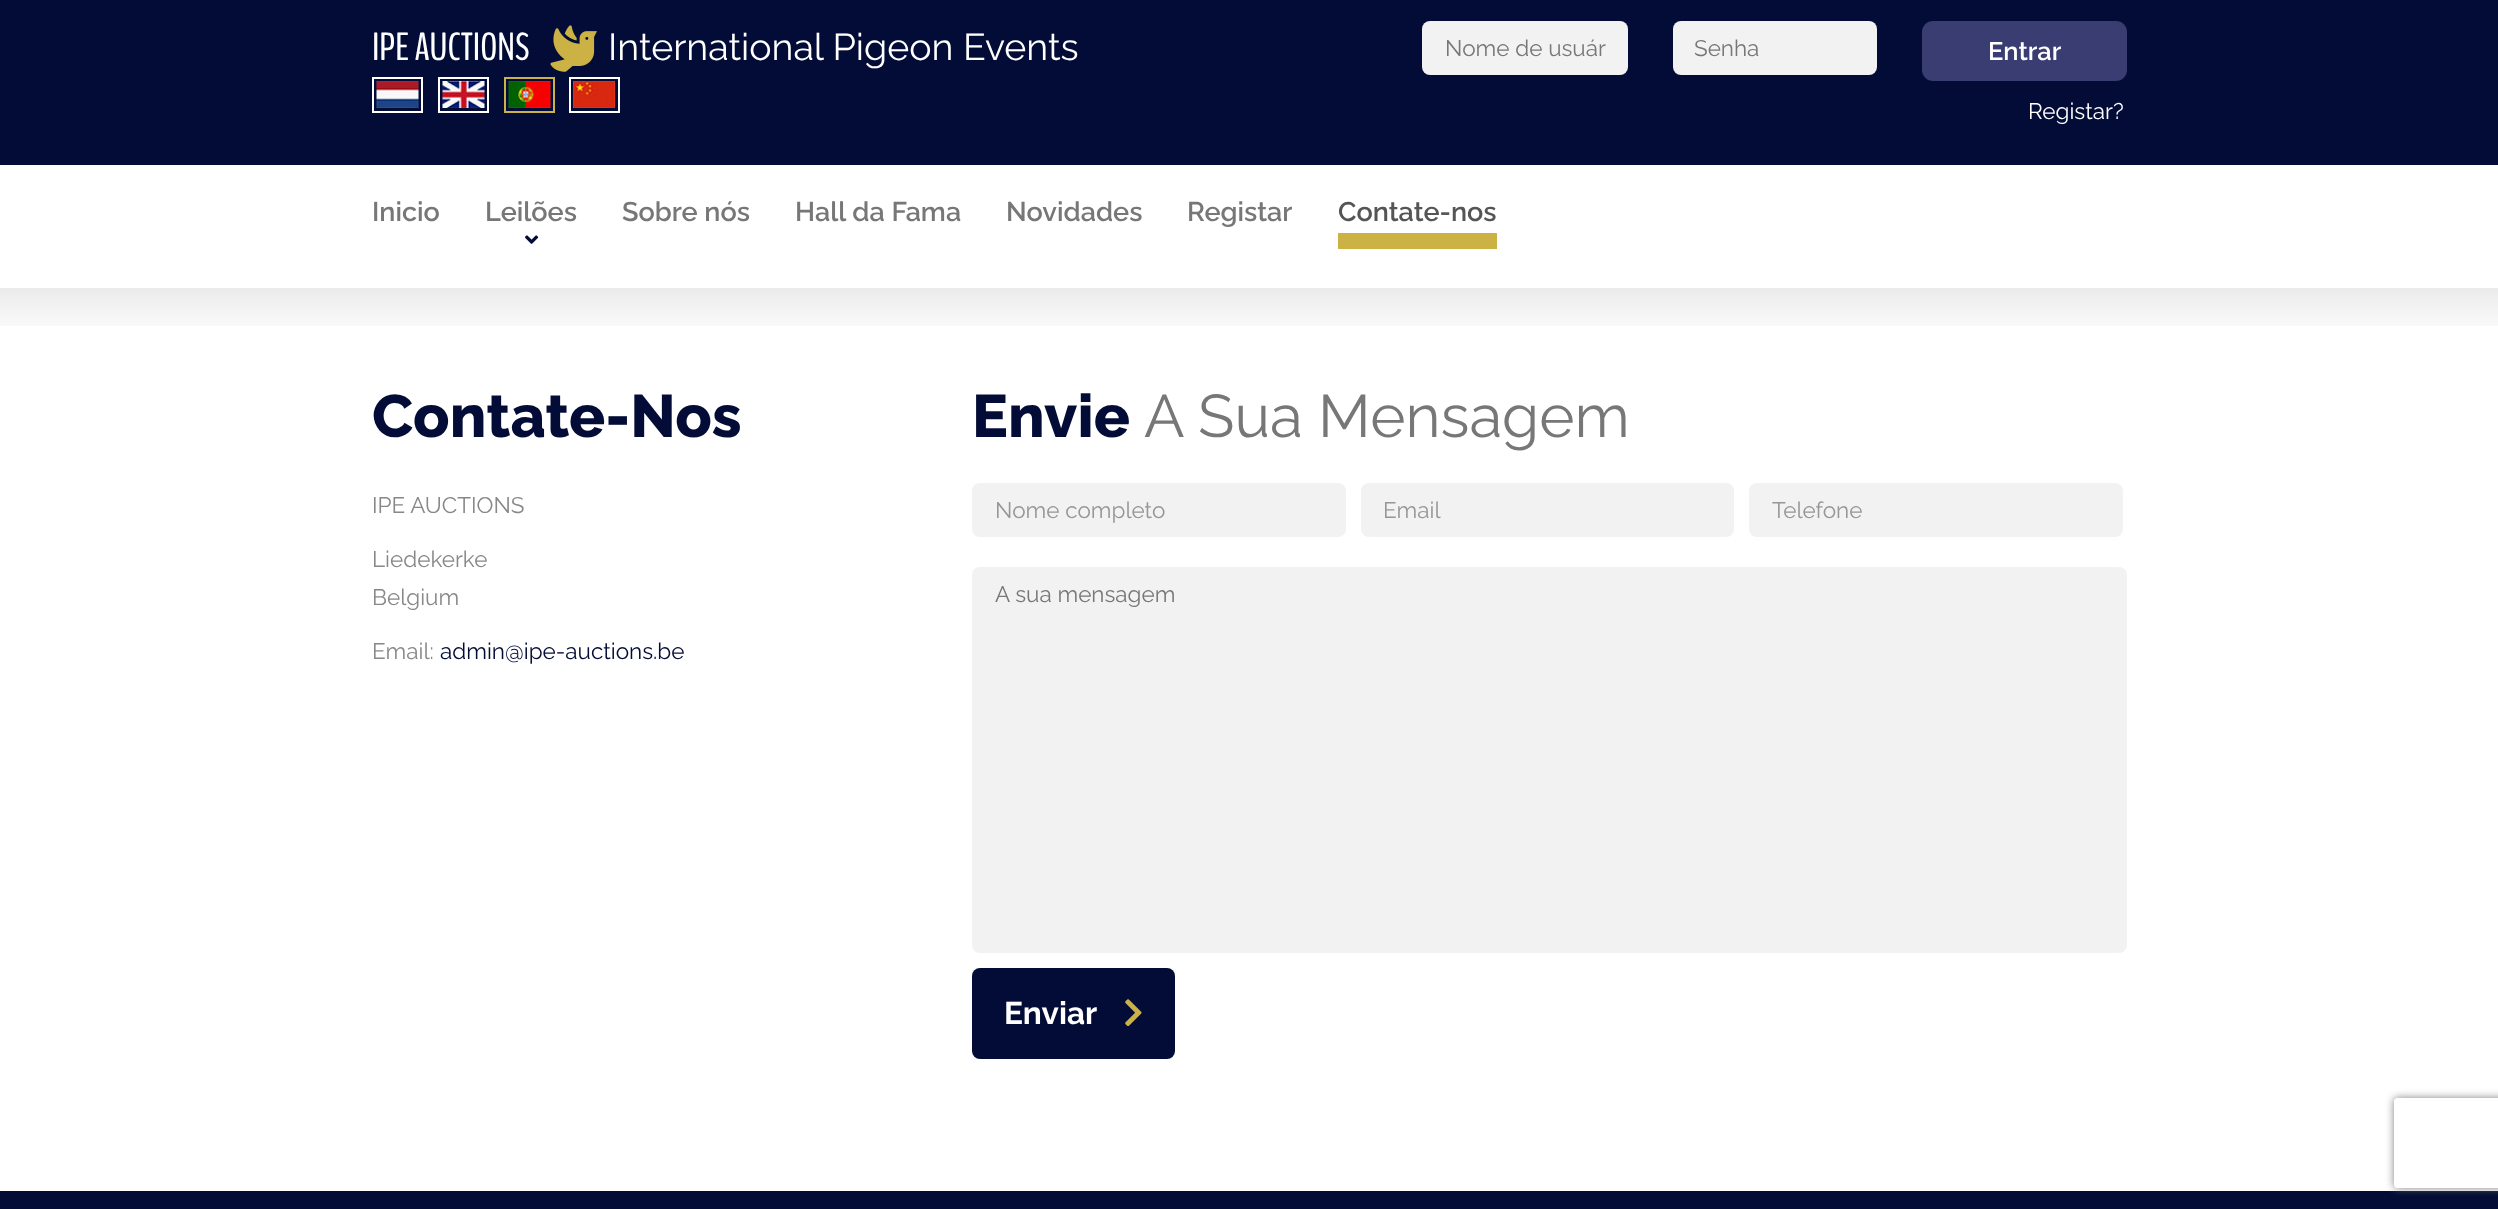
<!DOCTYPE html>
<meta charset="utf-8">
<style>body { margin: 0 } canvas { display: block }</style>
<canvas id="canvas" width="2498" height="1209"></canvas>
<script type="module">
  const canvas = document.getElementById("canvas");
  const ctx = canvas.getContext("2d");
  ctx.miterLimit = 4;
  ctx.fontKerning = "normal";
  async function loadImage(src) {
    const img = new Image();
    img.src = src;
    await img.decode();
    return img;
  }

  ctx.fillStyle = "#ffffff";
  ctx.fillRect(0, 0, 2498, 1209);
  ctx.fillStyle = "#030c36";
  ctx.fillRect(0, 0, 2498, 165);
  ctx.font = "39px BenchNine";
  ctx.fillStyle = "#ffffff";
  ctx.fillText("IPE AUCTIONS", 372, 60);
  ctx.drawImage(await loadImage("img1.png"), 550, 25, 47, 47);
  ctx.font = "37.5px Raleway";
  ctx.fillText("International Pigeon Events", 608, 60);
  ctx.strokeStyle = "#ffffff";
  ctx.lineWidth = 2;
  ctx.strokeRect(373, 78, 49, 34);
  ctx.drawImage(await loadImage("img2.png"), 376, 81, 43, 27);
  ctx.strokeRect(439, 78, 49, 34);
  ctx.drawImage(await loadImage("img3.png"), 442, 81, 43, 27);
  ctx.strokeStyle = "#ccb144";
  ctx.strokeRect(505, 78, 49, 34);
  ctx.drawImage(await loadImage("img4.png"), 508, 81, 43, 27);
  ctx.strokeStyle = "#ffffff";
  ctx.strokeRect(570, 78, 49, 34);
  ctx.drawImage(await loadImage("img5.png"), 573, 81, 42, 27);
  ctx.fillStyle = "#f2f2f2";
  ctx.beginPath();
  ctx.roundRect(1422, 21, 206, 54, 8);
  ctx.fill();
  ctx.font = "22.5px Raleway";
  ctx.fillStyle = "#777777";
  ctx.fillText("Nome de usuár", 1445, 56);
  ctx.fillStyle = "#f2f2f2";
  ctx.beginPath();
  ctx.roundRect(1673, 21, 204, 54, 8);
  ctx.fill();
  ctx.fillStyle = "#777777";
  ctx.fillText("Senha", 1694, 56);
  ctx.fillStyle = "#3a3d72";
  ctx.beginPath();
  ctx.roundRect(1922, 21, 205, 60, 11);
  ctx.fill();
  ctx.font = "600 25.5px Raleway";
  ctx.fillStyle = "#ffffff";
  ctx.fillText("Entrar", 1988, 60);
  ctx.font = "22.5px Raleway";
  ctx.fillText("Registar?", 2028, 119);
  ctx.font = "600 27px Raleway";
  ctx.fillStyle = "#777777";
  ctx.fillText("Inicio", 372, 221);
  ctx.fillText("Leilões", 485, 221);
  ctx.drawImage(await loadImage("img6.png"), 525, 235, 14, 9);
  ctx.fillText("Sobre nós", 622, 221);
  ctx.fillText("Hall da Fama", 795, 221);
  ctx.fillText("Novidades", 1006, 221);
  ctx.fillText("Registar", 1187, 221);
  ctx.fillStyle = "#555555";
  ctx.fillText("Contate-nos", 1338, 221);
  ctx.fillStyle = "#ccb144";
  ctx.fillRect(1338, 233, 159, 16);
  ctx.drawImage(await loadImage("img7.png"), 0, 288, 2498, 38);
  ctx.font = "800 60px Raleway";
  ctx.fillStyle = "#030c36";
  ctx.fillText("Contate-Nos", 372, 437);
  ctx.font = "22.5px Raleway";
  ctx.fillStyle = "#888888";
  ctx.fillText("IPE AUCTIONS", 372, 513);
  ctx.fillText("Liedekerke", 372, 567);
  ctx.fillText("Belgium", 372, 605);
  ctx.fillText("Email:", 372, 659);
  ctx.fillStyle = "#030c36";
  ctx.fillText("admin@ipe-auctions.be", 440, 659);
  ctx.font = "800 60px Raleway";
  ctx.fillText("Envie", 972, 437);
  ctx.font = "60px Raleway";
  ctx.fillStyle = "#777777";
  ctx.fillText("A Sua Mensagem", 1144, 437);
  ctx.fillStyle = "#f2f2f2";
  ctx.beginPath();
  ctx.roundRect(972, 483, 374, 54, 8);
  ctx.fill();
  ctx.font = "22.5px Raleway";
  ctx.fillStyle = "#969696";
  ctx.fillText("Nome completo", 995, 518);
  ctx.fillStyle = "#f2f2f2";
  ctx.beginPath();
  ctx.roundRect(1361, 483, 373, 54, 8);
  ctx.fill();
  ctx.fillStyle = "#969696";
  ctx.fillText("Email", 1383, 518);
  ctx.fillStyle = "#f2f2f2";
  ctx.beginPath();
  ctx.roundRect(1749, 483, 374, 54, 8);
  ctx.fill();
  ctx.fillStyle = "#969696";
  ctx.fillText("Telefone", 1772, 518);
  ctx.fillStyle = "#f2f2f2";
  ctx.beginPath();
  ctx.roundRect(972, 567, 1155, 386, 8);
  ctx.fill();
  ctx.fillStyle = "#777777";
  ctx.fillText("A sua mensagem", 995, 602);
  ctx.fillStyle = "#030c36";
  ctx.beginPath();
  ctx.roundRect(972, 968, 203, 91, 8);
  ctx.fill();
  ctx.font = "bold 31.5px Raleway";
  ctx.fillStyle = "#ffffff";
  ctx.fillText("Enviar", 1004, 1024);
  ctx.drawImage(await loadImage("img8.png"), 1125, 999, 17, 28);
  ctx.fillStyle = "#030c36";
  ctx.fillRect(0, 1191, 2498, 18);
  ctx.save();
  ctx.beginPath();
  ctx.moveTo(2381, 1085);
  ctx.lineTo(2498, 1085);
  ctx.lineTo(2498, 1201);
  ctx.lineTo(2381, 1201);
  ctx.closePath();
  ctx.moveTo(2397, 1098);
  ctx.lineTo(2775, 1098);
  ctx.bezierCurveTo(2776.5, 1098, 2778, 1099.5, 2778, 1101);
  ctx.lineTo(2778, 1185);
  ctx.bezierCurveTo(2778, 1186.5, 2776.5, 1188, 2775, 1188);
  ctx.lineTo(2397, 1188);
  ctx.bezierCurveTo(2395.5, 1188, 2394, 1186.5, 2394, 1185);
  ctx.lineTo(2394, 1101);
  ctx.bezierCurveTo(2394, 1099.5, 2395.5, 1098, 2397, 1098);
  ctx.closePath();
  ctx.clip("evenodd");
  ctx.fillStyle = "#808080";
  ctx.filter = "blur(4px)";
  ctx.beginPath();
  ctx.roundRect(2394, 1098, 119, 90, 3);
  ctx.fill();
  ctx.filter = "none";
  ctx.restore();
</script>
